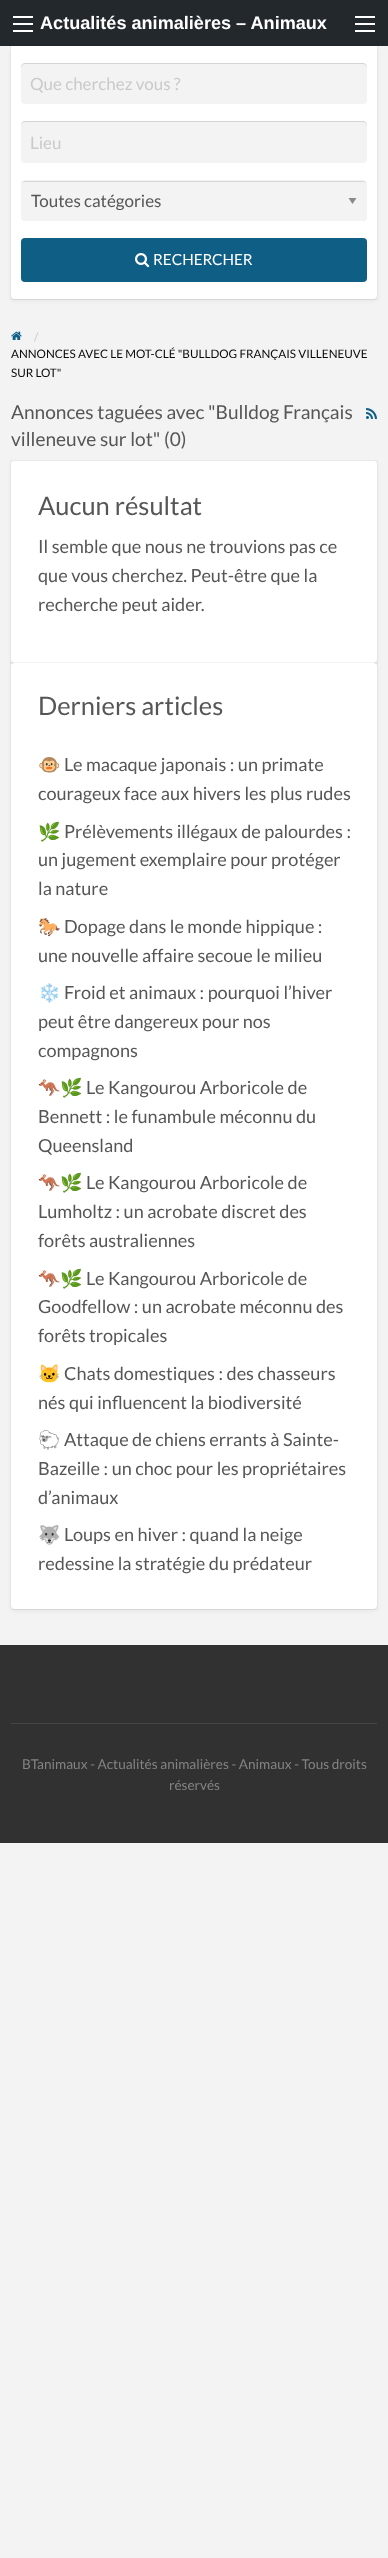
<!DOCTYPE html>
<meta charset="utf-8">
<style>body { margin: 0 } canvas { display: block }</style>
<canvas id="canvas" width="388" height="2558"></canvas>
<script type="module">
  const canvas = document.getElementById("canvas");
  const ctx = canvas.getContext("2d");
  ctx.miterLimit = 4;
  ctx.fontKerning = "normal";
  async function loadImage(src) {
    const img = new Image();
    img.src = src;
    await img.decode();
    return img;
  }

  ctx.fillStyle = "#f3f3f4";
  ctx.fillRect(0, 0, 388, 2558);
  ctx.fillStyle = "#23282d";
  ctx.fillRect(0, 0, 388, 46);
  ctx.fillStyle = "#fefefe";
  ctx.fillRect(13, 30, 20, 2);
  ctx.fillRect(13, 23, 20, 2);
  ctx.fillRect(13, 16, 20, 2);
  ctx.font = "bold 18.1px Liberation Sans";
  ctx.fillStyle = "#ffffff";
  ctx.fillText("Actualités animalières – Animaux", 40, 29);
  ctx.fillStyle = "#fefefe";
  ctx.fillRect(355, 30, 20, 2);
  ctx.fillRect(355, 23, 20, 2);
  ctx.fillRect(355, 16, 20, 2);
  ctx.fillStyle = "rgba(0, 0, 0, 0.05)";
  ctx.filter = "blur(2.5px)";
  ctx.beginPath();
  ctx.roundRect(11, 48, 366, 253, 4);
  ctx.fill();
  ctx.filter = "none";
  ctx.filter = "blur(0.5px)";
  ctx.beginPath();
  ctx.roundRect(11, 47, 366, 253, 4);
  ctx.fill();
  ctx.filter = "none";
  ctx.strokeStyle = "rgba(0, 0, 0, 0.03)";
  ctx.strokeRect(10.5, 45.5, 367, 254);
  ctx.fillStyle = "#ffffff";
  ctx.beginPath();
  ctx.roundRect(11, 46, 366, 253, [0, 0, 4, 4]);
  ctx.fill();
  ctx.fillStyle = "#f3f3f4";
  ctx.beginPath();
  ctx.roundRect(21, 63, 346, 41, 4);
  ctx.fill();
  ctx.fillStyle = "rgba(0, 0, 0, 0.12)";
  ctx.beginPath();
  ctx.moveTo(25, 64);
  ctx.lineTo(363, 64);
  ctx.bezierCurveTo(365, 64, 367, 66, 367, 68);
  ctx.lineTo(367, 67);
  ctx.bezierCurveTo(367, 65, 365, 63, 363, 63);
  ctx.lineTo(25, 63);
  ctx.bezierCurveTo(23, 63, 21, 65, 21, 67);
  ctx.lineTo(21, 68);
  ctx.bezierCurveTo(21, 66, 23, 64, 25, 64);
  ctx.closePath();
  ctx.fill();
  ctx.font = "17px Lato";
  ctx.fillStyle = "#cacaca";
  ctx.fillText("Que cherchez vous ?", 30, 90);
  ctx.fillStyle = "#f3f3f4";
  ctx.beginPath();
  ctx.roundRect(21, 121, 346, 42, 4);
  ctx.fill();
  ctx.fillStyle = "rgba(0, 0, 0, 0.12)";
  ctx.beginPath();
  ctx.moveTo(25, 122);
  ctx.lineTo(363, 122);
  ctx.bezierCurveTo(365, 122, 367, 124, 367, 126);
  ctx.lineTo(367, 125);
  ctx.bezierCurveTo(367, 123, 365, 121, 363, 121);
  ctx.lineTo(25, 121);
  ctx.bezierCurveTo(23, 121, 21, 123, 21, 125);
  ctx.lineTo(21, 126);
  ctx.bezierCurveTo(21, 124, 23, 122, 25, 122);
  ctx.closePath();
  ctx.fill();
  ctx.fillStyle = "#cacaca";
  ctx.fillText("Lieu", 30, 149);
  ctx.fillStyle = "#f3f3f4";
  ctx.beginPath();
  ctx.roundRect(21, 180, 346, 41, 4);
  ctx.fill();
  ctx.fillStyle = "#8a8a8a";
  ctx.beginPath();
  ctx.moveTo(348.5, 198);
  ctx.lineTo(356.5, 198);
  ctx.lineTo(352.5, 204);
  ctx.closePath();
  ctx.fill();
  ctx.fillStyle = "#d5d5d6";
  ctx.beginPath();
  ctx.moveTo(25, 182);
  ctx.lineTo(363, 182);
  ctx.bezierCurveTo(365, 182, 366, 183, 366, 185);
  ctx.bezierCurveTo(366, 183, 365, 181, 363, 181);
  ctx.lineTo(25, 181);
  ctx.bezierCurveTo(23, 181, 22, 183, 22, 185);
  ctx.bezierCurveTo(22, 183, 23, 182, 25, 182);
  ctx.closePath();
  ctx.fill();
  ctx.beginPath();
  ctx.roundRect(21.5, 180.5, 345, 40, 3.5);
  ctx.strokeStyle = "#f3f3f4";
  ctx.stroke();
  ctx.fillStyle = "#565656";
  ctx.fillText("Toutes catégories", 31, 207);
  ctx.fillStyle = "#0e5e86";
  ctx.beginPath();
  ctx.roundRect(21, 238, 346, 44, 4);
  ctx.fill();
  ctx.drawImage(await loadImage("img1.png"), 135, 253, 15, 15);
  ctx.font = "15.25px Lato";
  ctx.fillStyle = "#ffffff";
  ctx.fillText("RECHERCHER", 153, 265);
  ctx.drawImage(await loadImage("img2.png"), 11, 331, 11, 9);
  ctx.font = "11.7px Lato";
  ctx.fillStyle = "#cacaca";
  ctx.fillText("/", 34, 341);
  ctx.fillStyle = "#0a0a0a";
  ctx.fillText("ANNONCES AVEC LE MOT-CLÉ \"BULLDOG FRANÇAIS VILLENEUVE", 11, 358);
  ctx.fillText("SUR LOT\"", 11, 377);
  ctx.font = "19.1px Lato";
  ctx.fillStyle = "#565656";
  ctx.fillText("Annonces taguées avec \"Bulldog Français", 11, 419);
  ctx.fillText("villeneuve sur lot\" (0)", 11, 446);
  ctx.drawImage(await loadImage("img3.png"), 366, 408, 11, 11);
  ctx.fillStyle = "rgba(0, 0, 0, 0.05)";
  ctx.filter = "blur(2.5px)";
  ctx.beginPath();
  ctx.roundRect(11, 463, 366, 202, 4);
  ctx.fill();
  ctx.filter = "none";
  ctx.filter = "blur(0.5px)";
  ctx.beginPath();
  ctx.roundRect(11, 462, 366, 202, 4);
  ctx.fill();
  ctx.filter = "none";
  ctx.strokeStyle = "rgba(0, 0, 0, 0.03)";
  ctx.strokeRect(10.5, 460.5, 367, 203);
  ctx.fillStyle = "#ffffff";
  ctx.beginPath();
  ctx.roundRect(11, 461, 366, 202, 4);
  ctx.fill();
  ctx.font = "25.5px Lato";
  ctx.fillStyle = "#565656";
  ctx.fillText("Aucun résultat", 38, 515);
  ctx.font = "18.1px Lato";
  ctx.fillText("Il semble que nous ne trouvions pas ce", 38, 553);
  ctx.fillText("que vous cherchez. Peut-être que la", 38, 582);
  ctx.fillText("recherche peut aider.", 38, 611);
  ctx.fillStyle = "rgba(0, 0, 0, 0.05)";
  ctx.filter = "blur(2.5px)";
  ctx.beginPath();
  ctx.roundRect(11, 665, 366, 946, 4);
  ctx.fill();
  ctx.filter = "none";
  ctx.filter = "blur(0.5px)";
  ctx.beginPath();
  ctx.roundRect(11, 664, 366, 946, 4);
  ctx.fill();
  ctx.filter = "none";
  ctx.strokeRect(10.5, 662.5, 367, 947);
  ctx.fillStyle = "#ffffff";
  ctx.beginPath();
  ctx.roundRect(11, 663, 366, 946, 4);
  ctx.fill();
  ctx.font = "25.5px Lato";
  ctx.fillStyle = "#565656";
  ctx.fillText("Derniers articles", 38, 715);
  ctx.font = "18.1px Noto Color Emoji";
  ctx.fillText("🐵", 38, 771);
  ctx.font = "18.1px Lato";
  ctx.fillText("Le macaque japonais : un primate", 64, 771);
  ctx.fillText("courageux face aux hivers les plus rudes", 38, 800);
  ctx.font = "18.1px Noto Color Emoji";
  ctx.fillText("🌿", 38, 838);
  ctx.font = "18.1px Lato";
  ctx.fillText("Prélèvements illégaux de palourdes :", 64, 838);
  ctx.fillText("un jugement exemplaire pour protéger", 38, 866);
  ctx.fillText("la nature", 38, 895);
  ctx.font = "18.1px Noto Color Emoji";
  ctx.fillText("🐎", 38, 933);
  ctx.font = "18.1px Lato";
  ctx.fillText("Dopage dans le monde hippique :", 64, 933);
  ctx.fillText("une nouvelle affaire secoue le milieu", 38, 962);
  ctx.font = "18.1px Noto Color Emoji";
  ctx.fillText("❄️", 38, 999);
  ctx.font = "18.1px Lato";
  ctx.fillText("Froid et animaux : pourquoi l’hiver", 64, 999);
  ctx.fillText("peut être dangereux pour nos", 38, 1028);
  ctx.fillText("compagnons", 38, 1057);
  ctx.font = "18.1px Noto Color Emoji";
  ctx.fillText("🦘🌿", 38, 1094);
  ctx.font = "18.1px Lato";
  ctx.fillText("Le Kangourou Arboricole de", 86, 1094);
  ctx.fillText("Bennett : le funambule méconnu du", 38, 1123);
  ctx.fillText("Queensland", 38, 1152);
  ctx.font = "18.1px Noto Color Emoji";
  ctx.fillText("🦘🌿", 38, 1189);
  ctx.font = "18.1px Lato";
  ctx.fillText("Le Kangourou Arboricole de", 86, 1189);
  ctx.fillText("Lumholtz : un acrobate discret des", 38, 1218);
  ctx.fillText("forêts australiennes", 38, 1247);
  ctx.font = "18.1px Noto Color Emoji";
  ctx.fillText("🦘🌿", 38, 1285);
  ctx.font = "18.1px Lato";
  ctx.fillText("Le Kangourou Arboricole de", 86, 1285);
  ctx.fillText("Goodfellow : un acrobate méconnu des", 38, 1313);
  ctx.fillText("forêts tropicales", 38, 1342);
  ctx.font = "18.1px Noto Color Emoji";
  ctx.fillText("🐱", 38, 1380);
  ctx.font = "18.1px Lato";
  ctx.fillText("Chats domestiques : des chasseurs", 64, 1380);
  ctx.fillText("nés qui influencent la biodiversité", 38, 1409);
  ctx.font = "18.1px Noto Color Emoji";
  ctx.fillText("🐑", 38, 1446);
  ctx.font = "18.1px Lato";
  ctx.fillText("Attaque de chiens errants à Sainte-", 64, 1446);
  ctx.fillText("Bazeille : un choc pour les propriétaires", 38, 1475);
  ctx.fillText("d’animaux", 38, 1504);
  ctx.font = "18.1px Noto Color Emoji";
  ctx.fillText("🐺", 38, 1541);
  ctx.font = "18.1px Lato";
  ctx.fillText("Loups en hiver : quand la neige", 64, 1541);
  ctx.fillText("redessine la stratégie du prédateur", 38, 1570);
  ctx.fillStyle = "#313131";
  ctx.fillRect(0, 1645, 388, 198);
  ctx.fillStyle = "#464646";
  ctx.fillRect(11, 1723, 366, 1);
  ctx.font = "13.6px Lato";
  ctx.fillStyle = "#838383";
  ctx.fillText("BTanimaux - Actualités animalières - Animaux - Tous droits", 22, 1769);
  ctx.fillText("réservés", 169, 1790);
</script>
